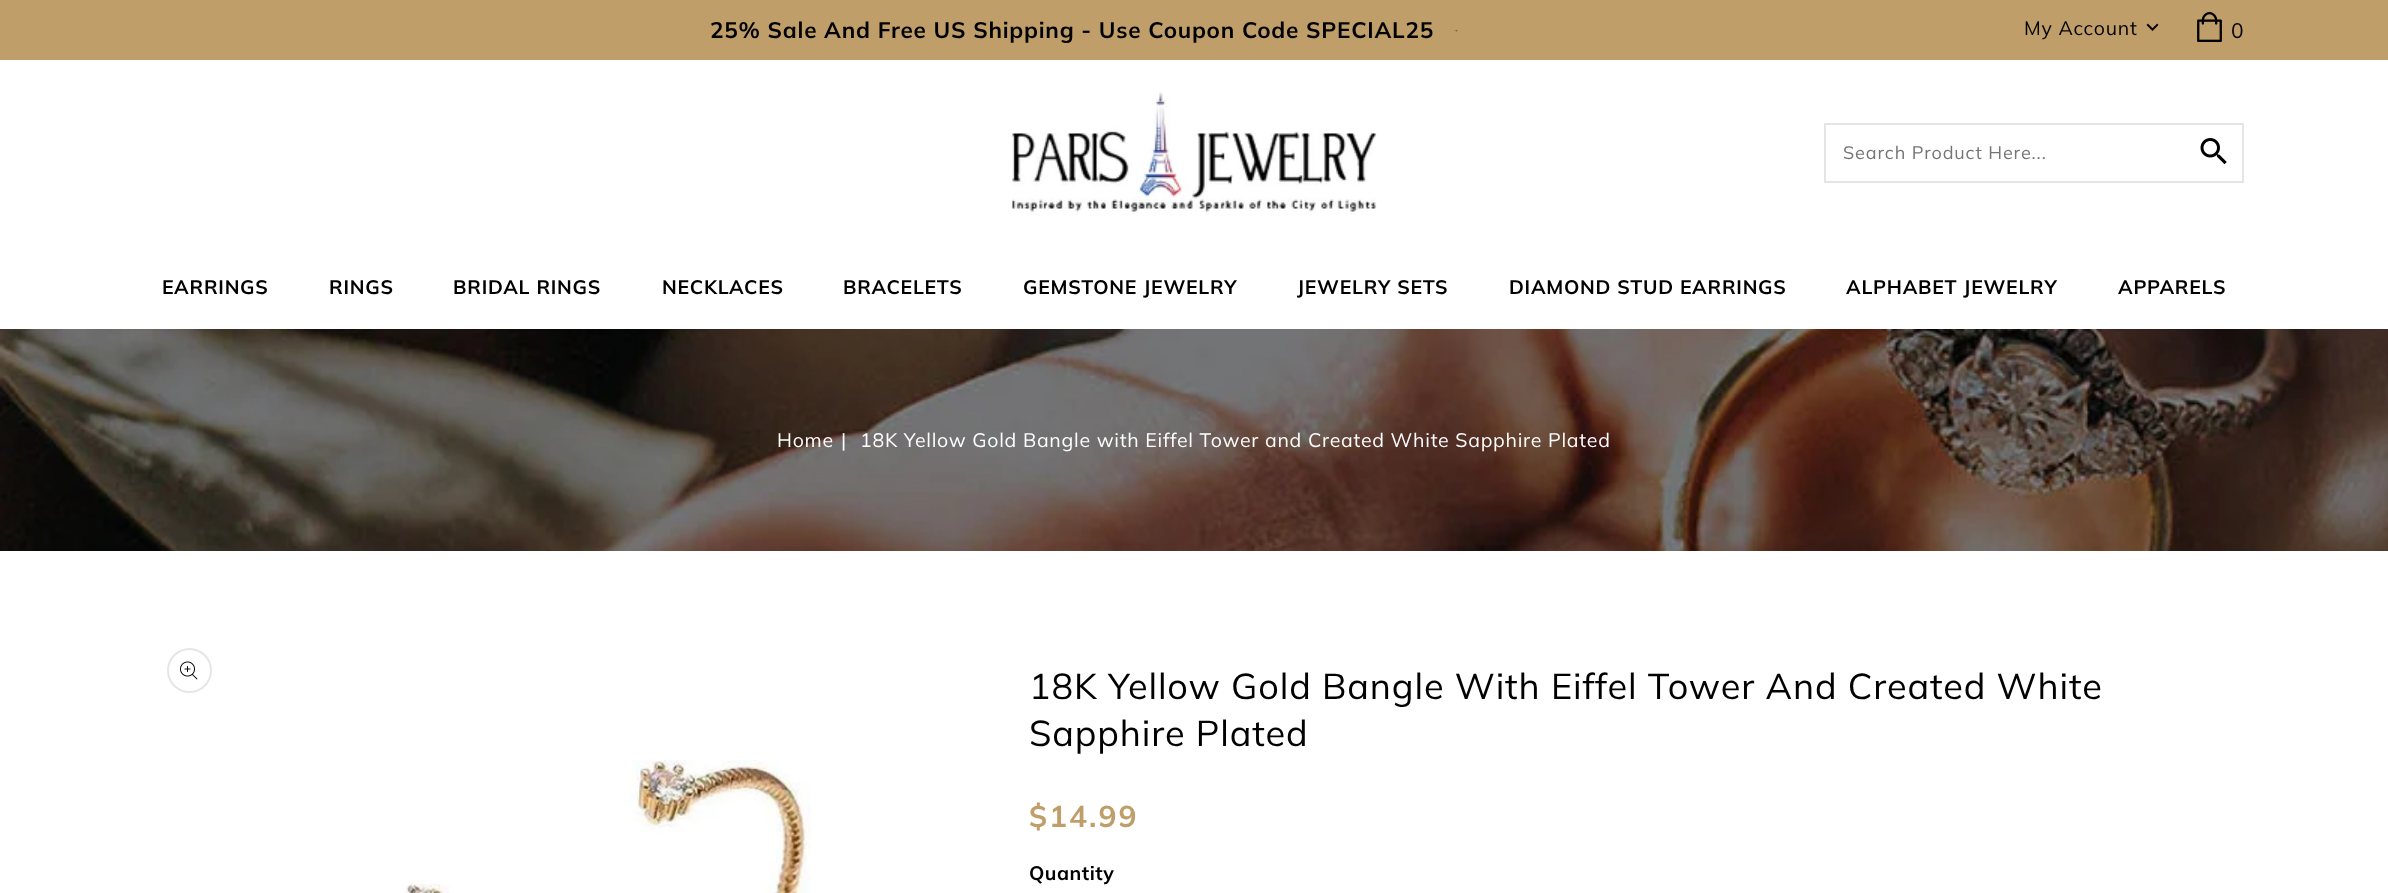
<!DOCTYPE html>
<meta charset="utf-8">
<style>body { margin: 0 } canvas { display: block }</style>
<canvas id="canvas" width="2388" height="893"></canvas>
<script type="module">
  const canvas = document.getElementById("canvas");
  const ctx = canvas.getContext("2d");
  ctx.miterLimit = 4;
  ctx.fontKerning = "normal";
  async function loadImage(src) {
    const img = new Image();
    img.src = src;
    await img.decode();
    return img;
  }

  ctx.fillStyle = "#ffffff";
  ctx.fillRect(0, 0, 2388, 893);
  ctx.fillStyle = "#bf9e6a";
  ctx.fillRect(0, 0, 2388, 60);
  ctx.letterSpacing = "0.75px";
  ctx.font = "bold 22.5px Muli";
  ctx.fillStyle = "#000000";
  ctx.fillText("25% Sale And Free US Shipping - Use Coupon Code SPECIAL25", 710, 38);
  ctx.drawImage(await loadImage("img1.png"), 1454, 29, 4, 3);
  ctx.font = "19.5px Muli";
  ctx.fillText("My Account", 2024, 35);
  ctx.drawImage(await loadImage("img2.png"), 2146, 23, 13, 8);
  ctx.drawImage(await loadImage("img3.png"), 2197, 12, 25, 30);
  ctx.font = "21px Muli";
  ctx.fillText("0", 2231, 38);
  ctx.drawImage(await loadImage("img4.png"), 1012, 91, 365, 124);
  ctx.strokeStyle = "#e5e5e5";
  ctx.lineWidth = 2;
  ctx.strokeRect(1825, 124, 418, 58);
  ctx.letterSpacing = "0.9px";
  ctx.font = "18px Muli";
  ctx.fillStyle = "#757575";
  ctx.fillText("Search Product Here...", 1843, 159);
  ctx.drawImage(await loadImage("img5.png"), 2200, 138, 27, 27);
  ctx.letterSpacing = "0.75px";
  ctx.font = "bold 19.5px Muli";
  ctx.fillStyle = "#000000";
  ctx.fillText("EARRINGS", 162, 294);
  ctx.fillText("RINGS", 329, 294);
  ctx.fillText("BRIDAL RINGS", 453, 294);
  ctx.fillText("NECKLACES", 662, 294);
  ctx.fillText("BRACELETS", 843, 294);
  ctx.fillText("GEMSTONE JEWELRY", 1023, 294);
  ctx.fillText("JEWELRY SETS", 1297, 294);
  ctx.fillText("DIAMOND STUD EARRINGS", 1509, 294);
  ctx.fillText("ALPHABET JEWELRY", 1846, 294);
  ctx.fillText("APPARELS", 2118, 294);
  ctx.drawImage(await loadImage("img6.png"), 0, 329, 2388, 222);
  ctx.font = "19.5px Muli";
  ctx.fillStyle = "#ffffff";
  ctx.fillText("Home", 777, 447);
  ctx.fillText("|", 841, 447);
  ctx.fillText("18K Yellow Gold Bangle with Eiffel Tower and Created White Sapphire Plated", 860, 447);
  ctx.beginPath();
  ctx.arc(189.5, 670.5, 21.5, 0, Math.PI * 2);
  ctx.strokeStyle = "#e6e6e6";
  ctx.stroke();
  ctx.drawImage(await loadImage("img7.png"), 180, 661, 18, 19);
  ctx.drawImage(await loadImage("img8.png"), 405, 760, 406, 133);
  ctx.letterSpacing = "0.9px";
  ctx.font = "36px Muli";
  ctx.fillStyle = "#000000";
  ctx.fillText("18K Yellow Gold Bangle With Eiffel Tower And Created White", 1029, 699);
  ctx.fillText("Sapphire Plated", 1029, 746);
  ctx.letterSpacing = "2px";
  ctx.font = "bold 30px Muli";
  ctx.fillStyle = "#bf9e6a";
  ctx.fillText("$14.99", 1029, 827);
  ctx.letterSpacing = "0.5px";
  ctx.font = "bold 19.5px Muli";
  ctx.fillStyle = "#000000";
  ctx.fillText("Quantity", 1029, 880);
</script>
